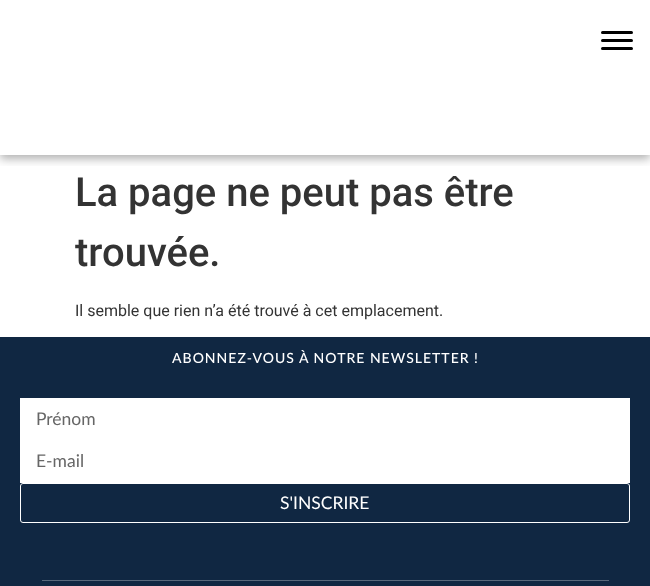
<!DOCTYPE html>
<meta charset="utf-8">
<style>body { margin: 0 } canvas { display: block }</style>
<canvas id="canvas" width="650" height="586"></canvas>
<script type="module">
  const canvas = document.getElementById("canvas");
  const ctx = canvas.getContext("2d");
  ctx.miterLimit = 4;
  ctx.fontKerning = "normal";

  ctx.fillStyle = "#ffffff";
  ctx.fillRect(0, 0, 650, 586);
  ctx.save();
  ctx.beginPath();
  ctx.rect(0, 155, 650, 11);
  ctx.clip();
  ctx.fillStyle = "rgba(0, 0, 0, 0.3)";
  ctx.filter = "blur(5px)";
  ctx.beginPath();
  ctx.rect(0, 4, 650, 155);
  ctx.fill();
  ctx.filter = "none";
  ctx.restore();
  ctx.fillStyle = "#000000";
  ctx.beginPath();
  ctx.roundRect(601, 31, 32, 3, 1.5);
  ctx.fill();
  ctx.beginPath();
  ctx.roundRect(601, 39, 32, 3, 1.5);
  ctx.fill();
  ctx.beginPath();
  ctx.roundRect(601, 47, 32, 3, 1.5);
  ctx.fill();
  ctx.font = "500 40px Roboto";
  ctx.fillStyle = "#333333";
  ctx.fillText("La page ne peut pas être", 75, 206);
  ctx.fillText("trouvée.", 75, 266);
  ctx.font = "16px Roboto";
  ctx.fillText("Il semble que rien n’a été trouvé à cet emplacement.", 75, 316);
  ctx.fillStyle = "#102742";
  ctx.fillRect(0, 337, 650, 249);
  ctx.letterSpacing = "1px";
  ctx.font = "500 14px Lato";
  ctx.fillStyle = "#ffffff";
  ctx.fillText("ABONNEZ-VOUS À NOTRE NEWSLETTER !", 172, 363);
  ctx.fillRect(20, 398, 610, 85);
  ctx.letterSpacing = "0px";
  ctx.font = "17.5px Lato";
  ctx.fillStyle = "#666666";
  ctx.fillText("Prénom", 36, 425);
  ctx.fillText("E-mail", 36, 467);
  ctx.beginPath();
  ctx.roundRect(20.5, 483.5, 609, 39, 2.5);
  ctx.strokeStyle = "#ffffff";
  ctx.stroke();
  ctx.fillStyle = "#ffffff";
  ctx.fillText("S'INSCRIRE", 280, 509);
  ctx.fillStyle = "#58687b";
  ctx.fillRect(42, 580, 567, 1);
</script>
